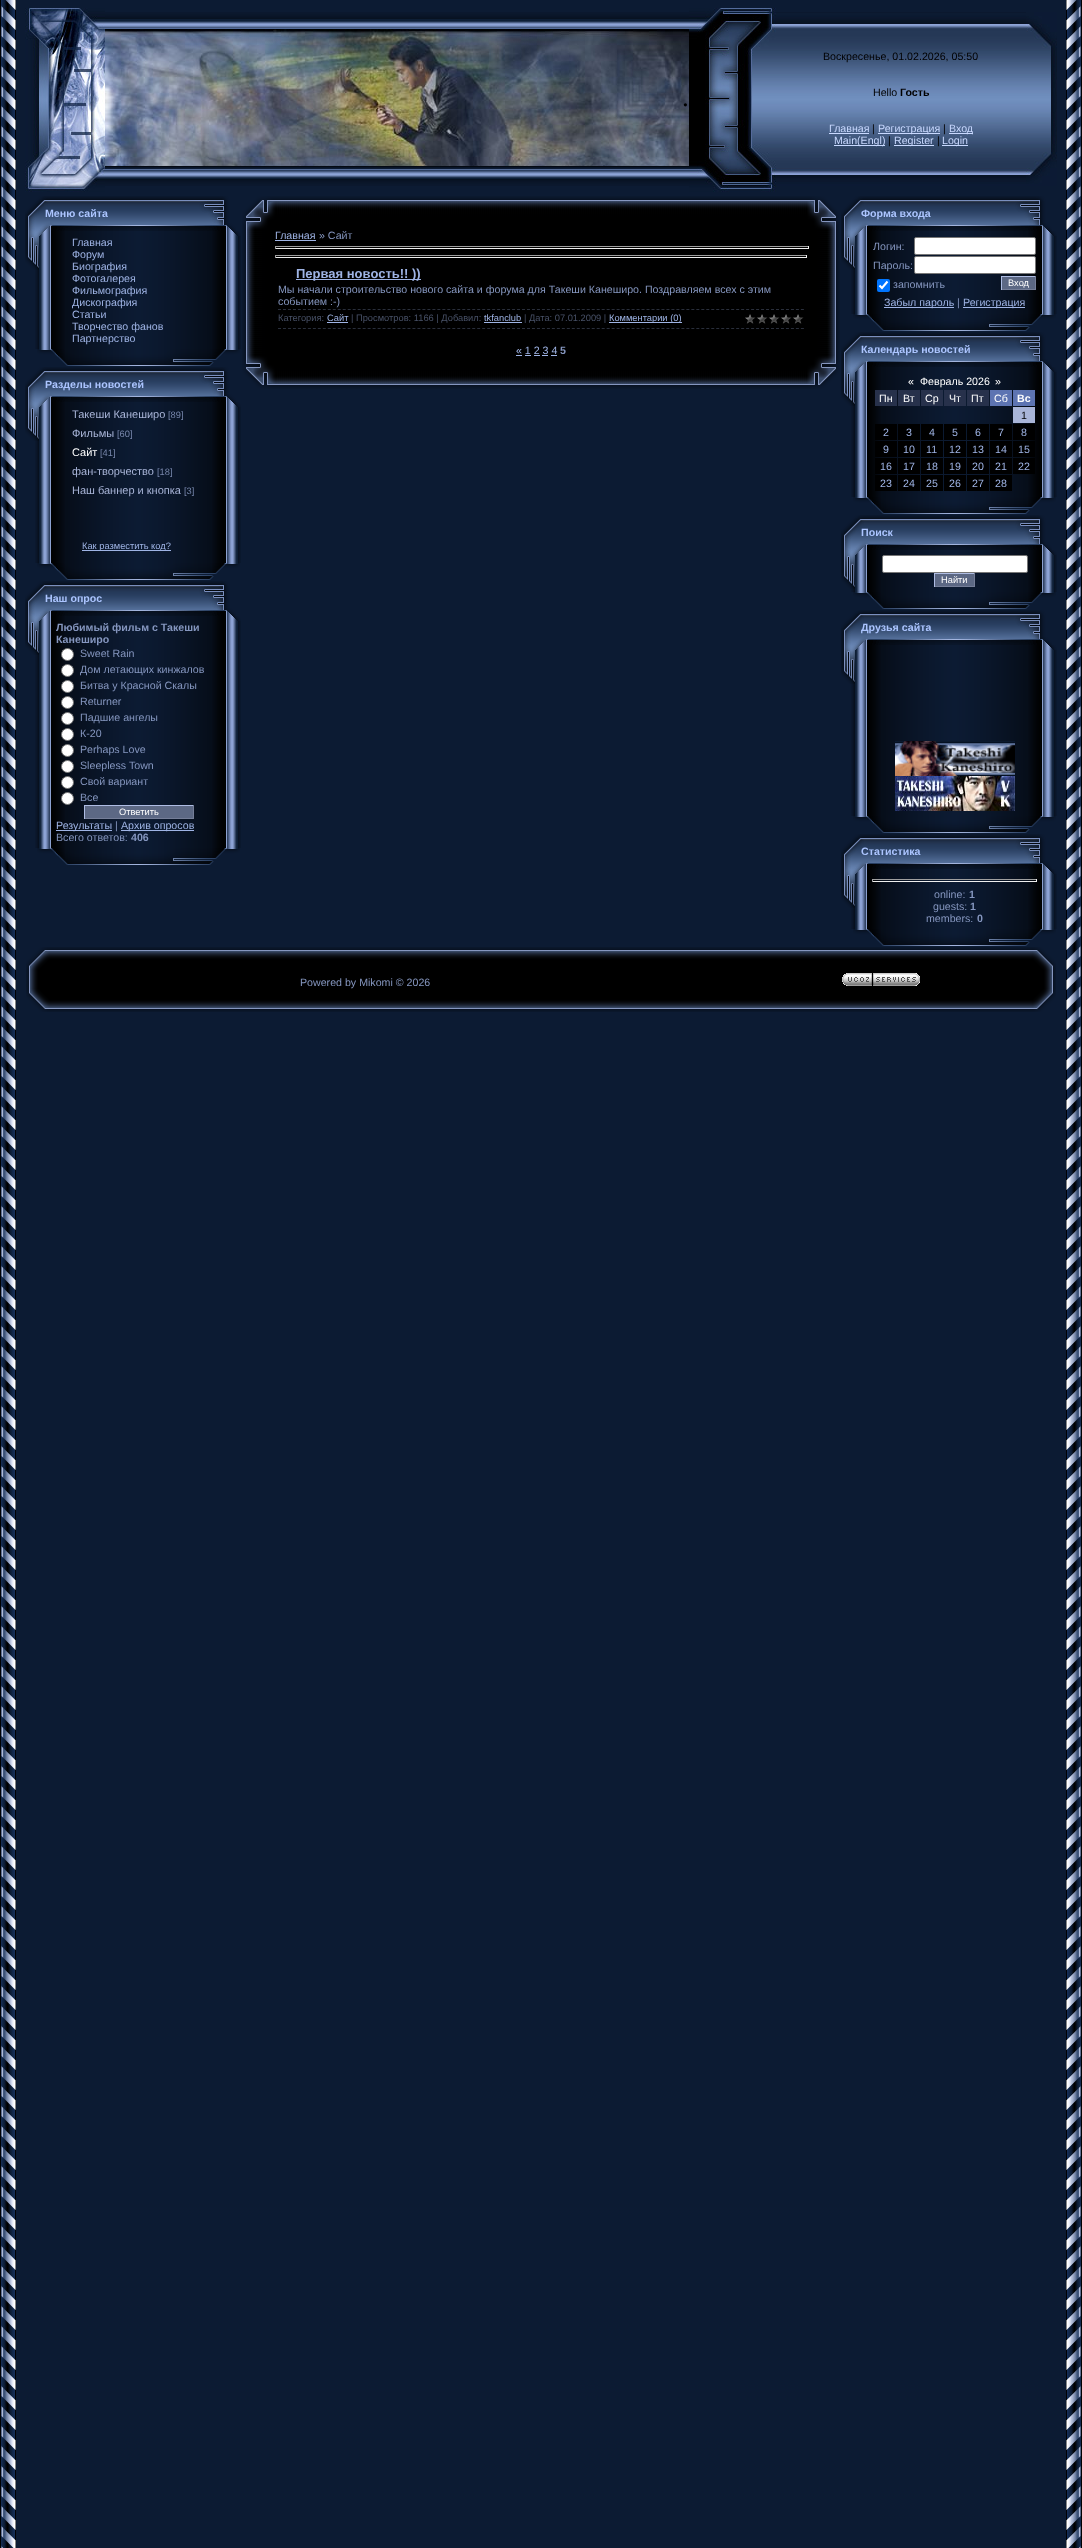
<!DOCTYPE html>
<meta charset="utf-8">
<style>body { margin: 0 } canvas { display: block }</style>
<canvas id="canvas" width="1082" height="2548"></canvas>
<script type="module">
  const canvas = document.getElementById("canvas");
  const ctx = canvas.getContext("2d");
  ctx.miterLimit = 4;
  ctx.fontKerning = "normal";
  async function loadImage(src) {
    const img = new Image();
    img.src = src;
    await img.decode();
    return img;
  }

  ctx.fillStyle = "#0c1b33";
  ctx.fillRect(0, 0, 1082, 2548);
  ctx.drawImage(await loadImage("img1.png"), 0, 0, 16, 2548);
  ctx.drawImage(await loadImage("img2.png"), 105, 12, 921, 174);
  ctx.drawImage(await loadImage("img3.png"), 25, 8, 80, 184);
  ctx.drawImage(await loadImage("img4.png"), 105, 29, 584, 137);
  ctx.font = "27px Liberation Serif";
  ctx.fillStyle = "#000000";
  ctx.fillText(".", 682, 106);
  ctx.drawImage(await loadImage("img5.png"), 689, 8, 87, 184);
  ctx.drawImage(await loadImage("img6.png"), 776, 13, 250, 173);
  ctx.font = "10.65px Liberation Sans";
  ctx.fillText("Воскресенье, 01.02.2026, 05:50", 823, 60);
  ctx.fillText("Hello", 873, 96);
  ctx.font = "bold 10.65px Liberation Sans";
  ctx.fillText("Гость", 900, 96);
  ctx.font = "10.65px Liberation Sans";
  ctx.fillStyle = "#c9d9ff";
  ctx.fillText("Главная", 829, 132);
  ctx.fillRect(829, 133, 40, 1);
  ctx.fillStyle = "#000000";
  ctx.fillText("|", 872, 132);
  ctx.fillStyle = "#c9d9ff";
  ctx.fillRect(878, 133, 62, 1);
  ctx.fillText("Регистрация", 878, 132);
  ctx.fillStyle = "#000000";
  ctx.fillText("|", 943, 132);
  ctx.fillStyle = "#c9d9ff";
  ctx.fillRect(949, 133, 24, 1);
  ctx.fillText("Вход", 949, 132);
  ctx.fillRect(834, 145, 51, 1);
  ctx.fillText("Main(Engl)", 834, 144);
  ctx.fillStyle = "#000000";
  ctx.fillText("|", 888, 144);
  ctx.fillStyle = "#c9d9ff";
  ctx.fillRect(894, 145, 40, 1);
  ctx.fillText("Register", 894, 144);
  ctx.fillStyle = "#000000";
  ctx.fillText("|", 937, 144);
  ctx.fillStyle = "#c9d9ff";
  ctx.fillRect(942, 145, 26, 1);
  ctx.fillText("Login", 942, 144);
  ctx.drawImage(await loadImage("img7.png"), 1026, 12, 31, 174);
  ctx.drawImage(await loadImage("img8.png"), 25, 196, 211, 35);
  ctx.font = "bold 10.65px Liberation Sans";
  ctx.fillStyle = "#acc5ff";
  ctx.fillText("Меню сайта", 45, 217);
  ctx.drawImage(await loadImage("img9.png"), 35, 231, 16, 118);
  ctx.drawImage(await loadImage("img10.png"), 25, 231, 19, 39);
  ctx.drawImage(await loadImage("img11.png"), 51, 231, 175, 118);
  ctx.font = "10.65px Liberation Sans";
  ctx.fillStyle = "#9fb4e5";
  ctx.fillText("Главная", 72, 246);
  ctx.fillText("Форум", 72, 258);
  ctx.fillText("Биография", 72, 270);
  ctx.fillText("Фотогалерея", 72, 282);
  ctx.fillText("Фильмография", 72, 294);
  ctx.fillText("Дискография", 72, 306);
  ctx.fillText("Статьи", 72, 318);
  ctx.fillText("Творчество фанов", 72, 330);
  ctx.fillText("Партнерство", 72, 342);
  ctx.drawImage(await loadImage("img12.png"), 226, 231, 15, 118);
  ctx.drawImage(await loadImage("img13.png"), 233, 231, 8, 5);
  ctx.drawImage(await loadImage("img14.png"), 37, 349, 203, 17);
  ctx.drawImage(await loadImage("img8.png"), 25, 367, 211, 35);
  ctx.font = "bold 10.65px Liberation Sans";
  ctx.fillStyle = "#acc5ff";
  ctx.fillText("Разделы новостей", 45, 388);
  ctx.drawImage(await loadImage("img15.png"), 35, 402, 16, 161);
  ctx.drawImage(await loadImage("img10.png"), 25, 402, 19, 39);
  ctx.drawImage(await loadImage("img16.png"), 51, 402, 175, 161);
  ctx.font = "11px Liberation Sans";
  ctx.fillStyle = "#a9b5d8";
  ctx.fillText("Такеши Канеширо", 72, 418);
  ctx.font = "9.3px Liberation Sans";
  ctx.fillStyle = "#7887ac";
  ctx.fillText("[89]", 168, 418);
  ctx.font = "11px Liberation Sans";
  ctx.fillStyle = "#a9b5d8";
  ctx.fillText("Фильмы", 72, 437);
  ctx.font = "9.3px Liberation Sans";
  ctx.fillStyle = "#7887ac";
  ctx.fillText("[60]", 117, 437);
  ctx.font = "11px Liberation Sans";
  ctx.fillStyle = "#ffffff";
  ctx.fillText("Сайт", 72, 456);
  ctx.font = "9.3px Liberation Sans";
  ctx.fillStyle = "#7887ac";
  ctx.fillText("[41]", 100, 456);
  ctx.font = "11px Liberation Sans";
  ctx.fillStyle = "#a9b5d8";
  ctx.fillText("фан-творчество", 72, 475);
  ctx.font = "9.3px Liberation Sans";
  ctx.fillStyle = "#7887ac";
  ctx.fillText("[18]", 157, 475);
  ctx.font = "11px Liberation Sans";
  ctx.fillStyle = "#a9b5d8";
  ctx.fillText("Наш баннер и кнопка", 72, 494);
  ctx.font = "9.3px Liberation Sans";
  ctx.fillStyle = "#7887ac";
  ctx.fillText("[3]", 184, 494);
  ctx.fillStyle = "#9fb4e5";
  ctx.fillRect(82, 550, 89, 1);
  ctx.fillText("Как разместить код?", 82, 549);
  ctx.drawImage(await loadImage("img17.png"), 226, 402, 15, 161);
  ctx.drawImage(await loadImage("img13.png"), 233, 402, 8, 5);
  ctx.drawImage(await loadImage("img14.png"), 37, 563, 203, 17);
  ctx.drawImage(await loadImage("img8.png"), 25, 581, 211, 35);
  ctx.font = "bold 10.65px Liberation Sans";
  ctx.fillStyle = "#acc5ff";
  ctx.fillText("Наш опрос", 45, 602);
  ctx.drawImage(await loadImage("img18.png"), 35, 616, 16, 232);
  ctx.drawImage(await loadImage("img10.png"), 25, 616, 19, 39);
  ctx.drawImage(await loadImage("img19.png"), 51, 616, 175, 232);
  ctx.fillStyle = "#8596bf";
  ctx.fillText("Любимый фильм с Такеши", 56, 631);
  ctx.fillText("Канеширо", 56, 643);
  ctx.fillStyle = "#ffffff";
  ctx.beginPath();
  ctx.arc(67.5, 654.5, 6, 0, Math.PI * 2);
  ctx.fill();
  ctx.strokeStyle = "#767676";
  ctx.stroke();
  ctx.font = "10.65px Liberation Sans";
  ctx.fillStyle = "#8596bf";
  ctx.fillText("Sweet Rain", 80, 657);
  ctx.fillStyle = "#ffffff";
  ctx.beginPath();
  ctx.arc(67.5, 670.5, 6, 0, Math.PI * 2);
  ctx.fill();
  ctx.stroke();
  ctx.fillStyle = "#8596bf";
  ctx.fillText("Дом летающих кинжалов", 80, 673);
  ctx.fillStyle = "#ffffff";
  ctx.beginPath();
  ctx.arc(67.5, 686.5, 6, 0, Math.PI * 2);
  ctx.fill();
  ctx.stroke();
  ctx.fillStyle = "#8596bf";
  ctx.fillText("Битва у Красной Скалы", 80, 689);
  ctx.fillStyle = "#ffffff";
  ctx.beginPath();
  ctx.arc(67.5, 702.5, 6, 0, Math.PI * 2);
  ctx.fill();
  ctx.stroke();
  ctx.fillStyle = "#8596bf";
  ctx.fillText("Returner", 80, 705);
  ctx.fillStyle = "#ffffff";
  ctx.beginPath();
  ctx.arc(67.5, 718.5, 6, 0, Math.PI * 2);
  ctx.fill();
  ctx.stroke();
  ctx.fillStyle = "#8596bf";
  ctx.fillText("Падшие ангелы", 80, 721);
  ctx.fillStyle = "#ffffff";
  ctx.beginPath();
  ctx.arc(67.5, 734.5, 6, 0, Math.PI * 2);
  ctx.fill();
  ctx.stroke();
  ctx.fillStyle = "#8596bf";
  ctx.fillText("К-20", 80, 737);
  ctx.fillStyle = "#ffffff";
  ctx.beginPath();
  ctx.arc(67.5, 750.5, 6, 0, Math.PI * 2);
  ctx.fill();
  ctx.stroke();
  ctx.fillStyle = "#8596bf";
  ctx.fillText("Perhaps Love", 80, 753);
  ctx.fillStyle = "#ffffff";
  ctx.beginPath();
  ctx.arc(67.5, 766.5, 6, 0, Math.PI * 2);
  ctx.fill();
  ctx.stroke();
  ctx.fillStyle = "#8596bf";
  ctx.fillText("Sleepless Town", 80, 769);
  ctx.fillStyle = "#ffffff";
  ctx.beginPath();
  ctx.arc(67.5, 782.5, 6, 0, Math.PI * 2);
  ctx.fill();
  ctx.stroke();
  ctx.fillStyle = "#8596bf";
  ctx.fillText("Свой вариант", 80, 785);
  ctx.fillStyle = "#ffffff";
  ctx.beginPath();
  ctx.arc(67.5, 798.5, 6, 0, Math.PI * 2);
  ctx.fill();
  ctx.stroke();
  ctx.fillStyle = "#8596bf";
  ctx.fillText("Все", 80, 801);
  ctx.fillStyle = "#5c6884";
  ctx.fillRect(85, 806, 108, 12);
  ctx.fillStyle = "#afbde4";
  ctx.fillRect(84, 805, 110, 1);
  ctx.fillStyle = "#757e98";
  ctx.fillRect(193, 805, 1, 14);
  ctx.fillRect(84, 818, 110, 1);
  ctx.fillStyle = "#afbde4";
  ctx.fillRect(84, 805, 1, 14);
  ctx.font = "9.3px Liberation Sans";
  ctx.fillStyle = "#ffffff";
  ctx.fillText("Ответить", 119, 815);
  ctx.fillStyle = "#9fb4e5";
  ctx.fillRect(56, 830, 56, 1);
  ctx.font = "10.65px Liberation Sans";
  ctx.fillText("Результаты", 56, 829);
  ctx.fillStyle = "#8596bf";
  ctx.fillText("|", 115, 829);
  ctx.fillStyle = "#9fb4e5";
  ctx.fillRect(121, 830, 73, 1);
  ctx.fillText("Архив опросов", 121, 829);
  ctx.fillStyle = "#8596bf";
  ctx.fillText("Всего ответов:", 56, 841);
  ctx.font = "bold 10.65px Liberation Sans";
  ctx.fillText("406", 131, 841);
  ctx.drawImage(await loadImage("img20.png"), 226, 616, 15, 232);
  ctx.drawImage(await loadImage("img13.png"), 233, 616, 8, 5);
  ctx.drawImage(await loadImage("img14.png"), 37, 848, 203, 17);
  ctx.drawImage(await loadImage("img21.png"), 242, 196, 33, 33);
  ctx.drawImage(await loadImage("img22.png"), 275, 196, 532, 33);
  ctx.drawImage(await loadImage("img23.png"), 807, 196, 33, 33);
  ctx.drawImage(await loadImage("img24.png"), 242, 229, 33, 127);
  ctx.fillStyle = "#000000";
  ctx.fillRect(275, 229, 532, 127);
  ctx.font = "10.65px Liberation Sans";
  ctx.fillStyle = "#9fb4e5";
  ctx.fillText("Главная", 275, 239);
  ctx.fillRect(275, 240, 41, 1);
  ctx.fillStyle = "#8596bf";
  ctx.fillText("» Сайт", 319, 239);
  ctx.drawImage(await loadImage("img26.png"), 807, 229, 33, 127);
  ctx.fillStyle = "#9f9f9f";
  ctx.fillRect(275, 246, 534, 1);
  ctx.fillStyle = "#eeeeee";
  ctx.fillRect(808, 246, 1, 3);
  ctx.fillRect(275, 248, 534, 1);
  ctx.fillStyle = "#9f9f9f";
  ctx.fillRect(275, 246, 1, 3);
  ctx.fillRect(275, 255, 532, 1);
  ctx.fillStyle = "#eeeeee";
  ctx.fillRect(806, 255, 1, 3);
  ctx.fillRect(275, 257, 532, 1);
  ctx.fillStyle = "#9f9f9f";
  ctx.fillRect(275, 255, 1, 3);
  ctx.fillStyle = "#9fb4e5";
  ctx.fillRect(296, 279, 125, 1);
  ctx.font = "bold 13px Liberation Sans";
  ctx.fillText("Первая новость!! ))", 296, 278);
  ctx.font = "10.65px Liberation Sans";
  ctx.fillStyle = "#8596bf";
  ctx.fillText("Мы начали строительство нового сайта и форума для Такеши Канеширо. Поздравляем всех с этим", 278, 293);
  ctx.fillText("событием :-)", 278, 305);
  ctx.beginPath();
  ctx.moveTo(278, 309.5);
  ctx.lineTo(804, 309.5);
  ctx.strokeStyle = "#292e3b";
  ctx.setLineDash([3, 1.98]);
  ctx.stroke();
  ctx.beginPath();
  ctx.moveTo(278, 328.5);
  ctx.lineTo(804, 328.5);
  ctx.stroke();
  ctx.font = "9.3px Liberation Sans";
  ctx.fillStyle = "#485167";
  ctx.fillText("Категория:", 278, 321);
  ctx.fillStyle = "#9fb4e5";
  ctx.fillText("Сайт", 327, 321);
  ctx.fillRect(327, 322, 21, 1);
  ctx.fillStyle = "#485167";
  ctx.fillText("| Просмотров: 1166 | Добавил:", 351, 321);
  ctx.fillStyle = "#9fb4e5";
  ctx.fillText("tkfanclub", 484, 321);
  ctx.fillRect(484, 322, 38, 1);
  ctx.fillStyle = "#485167";
  ctx.fillText("| Дата: 07.01.2009 |", 524, 321);
  ctx.fillStyle = "#9fb4e5";
  ctx.fillRect(609, 322, 73, 1);
  ctx.fillText("Комментарии (0)", 609, 321);
  ctx.drawImage(await loadImage("img25.png"), 745, 314, 59, 10);
  ctx.font = "10.65px Liberation Sans";
  ctx.fillText("« 1 2 3 4", 516, 354);
  ctx.fillRect(516, 355, 6, 1);
  ctx.font = "bold 10.65px Liberation Sans";
  ctx.fillStyle = "#8596bf";
  ctx.fillText("5", 560, 354);
  ctx.fillStyle = "#9fb4e5";
  ctx.fillRect(525, 355, 6, 1);
  ctx.fillRect(534, 355, 6, 1);
  ctx.fillRect(542, 355, 6, 1);
  ctx.fillRect(551, 355, 6, 1);
  ctx.drawImage(await loadImage("img27.png"), 242, 356, 33, 33);
  ctx.drawImage(await loadImage("img28.png"), 275, 356, 532, 33);
  ctx.drawImage(await loadImage("img29.png"), 807, 356, 33, 33);
  ctx.drawImage(await loadImage("img8.png"), 841, 196, 211, 35);
  ctx.fillStyle = "#acc5ff";
  ctx.fillText("Форма входа", 861, 217);
  ctx.drawImage(await loadImage("img30.png"), 851, 231, 16, 83);
  ctx.drawImage(await loadImage("img10.png"), 841, 231, 19, 39);
  ctx.drawImage(await loadImage("img31.png"), 867, 231, 175, 83);
  ctx.font = "10.65px Liberation Sans";
  ctx.fillStyle = "#8596bf";
  ctx.fillText("Логин:", 873, 250);
  ctx.fillStyle = "#ffffff";
  ctx.beginPath();
  ctx.roundRect(914.5, 237.5, 121, 17, 1.5);
  ctx.fill();
  ctx.strokeStyle = "#767676";
  ctx.setLineDash([]);
  ctx.stroke();
  ctx.fillStyle = "#8596bf";
  ctx.fillText("Пароль:", 873, 269);
  ctx.fillStyle = "#ffffff";
  ctx.beginPath();
  ctx.roundRect(914.5, 256.5, 121, 17, 1.5);
  ctx.fill();
  ctx.stroke();
  ctx.fillStyle = "#0075ff";
  ctx.beginPath();
  ctx.roundRect(877, 279, 13, 13, 2);
  ctx.fill();
  ctx.beginPath();
  ctx.moveTo(879.5, 285.5);
  ctx.lineTo(882, 288);
  ctx.lineTo(887.5, 281.5);
  ctx.strokeStyle = "#ffffff";
  ctx.lineWidth = 2.1;
  ctx.stroke();
  ctx.fillStyle = "#8596bf";
  ctx.fillText("запомнить", 893, 288);
  ctx.fillStyle = "#5c6884";
  ctx.fillRect(1002, 277, 33, 12);
  ctx.fillStyle = "#afbde4";
  ctx.fillRect(1001, 276, 35, 1);
  ctx.fillStyle = "#757e98";
  ctx.fillRect(1035, 276, 1, 14);
  ctx.fillRect(1001, 289, 35, 1);
  ctx.fillStyle = "#afbde4";
  ctx.fillRect(1001, 276, 1, 14);
  ctx.font = "9.3px Liberation Sans";
  ctx.fillStyle = "#ffffff";
  ctx.fillText("Вход", 1008, 286);
  ctx.fillStyle = "#9fb4e5";
  ctx.fillRect(884, 307, 70, 1);
  ctx.font = "10.65px Liberation Sans";
  ctx.fillText("Забыл пароль", 884, 306);
  ctx.fillStyle = "#8596bf";
  ctx.fillText("|", 957, 306);
  ctx.fillStyle = "#9fb4e5";
  ctx.fillRect(963, 307, 62, 1);
  ctx.fillText("Регистрация", 963, 306);
  ctx.drawImage(await loadImage("img32.png"), 1042, 231, 15, 83);
  ctx.drawImage(await loadImage("img13.png"), 1049, 231, 8, 5);
  ctx.drawImage(await loadImage("img14.png"), 853, 314, 203, 17);
  ctx.drawImage(await loadImage("img8.png"), 841, 332, 211, 35);
  ctx.font = "bold 10.65px Liberation Sans";
  ctx.fillStyle = "#acc5ff";
  ctx.fillText("Календарь новостей", 861, 353);
  ctx.drawImage(await loadImage("img33.png"), 851, 367, 16, 130);
  ctx.drawImage(await loadImage("img10.png"), 841, 367, 19, 39);
  ctx.drawImage(await loadImage("img34.png"), 867, 367, 175, 130);
  ctx.font = "10.65px Liberation Sans";
  ctx.fillStyle = "#ffffff";
  ctx.fillText("«", 908, 385);
  ctx.fillText("Февраль 2026", 920, 385);
  ctx.fillText("»", 995, 385);
  ctx.fillStyle = "#27314b";
  ctx.fillRect(875, 390, 22, 16);
  ctx.fillStyle = "#ffffff";
  ctx.fillText("Пн", 879, 402);
  ctx.fillStyle = "#27314b";
  ctx.fillRect(898, 390, 22, 16);
  ctx.fillStyle = "#ffffff";
  ctx.fillText("Вт", 903, 402);
  ctx.fillStyle = "#27314b";
  ctx.fillRect(921, 390, 22, 16);
  ctx.fillStyle = "#ffffff";
  ctx.fillText("Ср", 925, 402);
  ctx.fillStyle = "#27314b";
  ctx.fillRect(944, 390, 22, 16);
  ctx.fillStyle = "#ffffff";
  ctx.fillText("Чт", 949, 402);
  ctx.fillStyle = "#27314b";
  ctx.fillRect(967, 390, 22, 16);
  ctx.fillStyle = "#ffffff";
  ctx.fillText("Пт", 971, 402);
  ctx.fillStyle = "#5d74b2";
  ctx.fillRect(990, 390, 22, 16);
  ctx.fillStyle = "#ffffff";
  ctx.fillText("Сб", 994, 402);
  ctx.fillStyle = "#5d74b2";
  ctx.fillRect(1013, 390, 22, 16);
  ctx.font = "bold 10.65px Liberation Sans";
  ctx.fillStyle = "#ffffff";
  ctx.fillText("Вс", 1017, 402);
  ctx.fillStyle = "#a9b5d8";
  ctx.fillRect(1013, 407, 22, 16);
  ctx.font = "10.65px Liberation Sans";
  ctx.fillStyle = "#000000";
  ctx.fillText("1", 1021, 419);
  ctx.fillRect(875, 424, 22, 16);
  ctx.fillStyle = "#9fb4e5";
  ctx.fillText("2", 883, 436);
  ctx.fillStyle = "#000000";
  ctx.fillRect(898, 424, 22, 16);
  ctx.fillStyle = "#9fb4e5";
  ctx.fillText("3", 906, 436);
  ctx.fillStyle = "#000000";
  ctx.fillRect(921, 424, 22, 16);
  ctx.fillStyle = "#9fb4e5";
  ctx.fillText("4", 929, 436);
  ctx.fillStyle = "#000000";
  ctx.fillRect(944, 424, 22, 16);
  ctx.fillStyle = "#9fb4e5";
  ctx.fillText("5", 952, 436);
  ctx.fillStyle = "#000000";
  ctx.fillRect(967, 424, 22, 16);
  ctx.fillStyle = "#9fb4e5";
  ctx.fillText("6", 975, 436);
  ctx.fillStyle = "#000000";
  ctx.fillRect(990, 424, 22, 16);
  ctx.fillStyle = "#9fb4e5";
  ctx.fillText("7", 998, 436);
  ctx.fillStyle = "#000000";
  ctx.fillRect(1013, 424, 22, 16);
  ctx.fillStyle = "#9fb4e5";
  ctx.fillText("8", 1021, 436);
  ctx.fillStyle = "#000000";
  ctx.fillRect(875, 441, 22, 16);
  ctx.fillStyle = "#9fb4e5";
  ctx.fillText("9", 883, 453);
  ctx.fillStyle = "#000000";
  ctx.fillRect(898, 441, 22, 16);
  ctx.fillStyle = "#9fb4e5";
  ctx.fillText("10", 903, 453);
  ctx.fillStyle = "#000000";
  ctx.fillRect(921, 441, 22, 16);
  ctx.fillStyle = "#9fb4e5";
  ctx.fillText("11", 926, 453);
  ctx.fillStyle = "#000000";
  ctx.fillRect(944, 441, 22, 16);
  ctx.fillStyle = "#9fb4e5";
  ctx.fillText("12", 949, 453);
  ctx.fillStyle = "#000000";
  ctx.fillRect(967, 441, 22, 16);
  ctx.fillStyle = "#9fb4e5";
  ctx.fillText("13", 972, 453);
  ctx.fillStyle = "#000000";
  ctx.fillRect(990, 441, 22, 16);
  ctx.fillStyle = "#9fb4e5";
  ctx.fillText("14", 995, 453);
  ctx.fillStyle = "#000000";
  ctx.fillRect(1013, 441, 22, 16);
  ctx.fillStyle = "#9fb4e5";
  ctx.fillText("15", 1018, 453);
  ctx.fillStyle = "#000000";
  ctx.fillRect(875, 458, 22, 16);
  ctx.fillStyle = "#9fb4e5";
  ctx.fillText("16", 880, 470);
  ctx.fillStyle = "#000000";
  ctx.fillRect(898, 458, 22, 16);
  ctx.fillStyle = "#9fb4e5";
  ctx.fillText("17", 903, 470);
  ctx.fillStyle = "#000000";
  ctx.fillRect(921, 458, 22, 16);
  ctx.fillStyle = "#9fb4e5";
  ctx.fillText("18", 926, 470);
  ctx.fillStyle = "#000000";
  ctx.fillRect(944, 458, 22, 16);
  ctx.fillStyle = "#9fb4e5";
  ctx.fillText("19", 949, 470);
  ctx.fillStyle = "#000000";
  ctx.fillRect(967, 458, 22, 16);
  ctx.fillStyle = "#9fb4e5";
  ctx.fillText("20", 972, 470);
  ctx.fillStyle = "#000000";
  ctx.fillRect(990, 458, 22, 16);
  ctx.fillStyle = "#9fb4e5";
  ctx.fillText("21", 995, 470);
  ctx.fillStyle = "#000000";
  ctx.fillRect(1013, 458, 22, 16);
  ctx.fillStyle = "#9fb4e5";
  ctx.fillText("22", 1018, 470);
  ctx.fillStyle = "#000000";
  ctx.fillRect(875, 475, 22, 16);
  ctx.fillStyle = "#9fb4e5";
  ctx.fillText("23", 880, 487);
  ctx.fillStyle = "#000000";
  ctx.fillRect(898, 475, 22, 16);
  ctx.fillStyle = "#9fb4e5";
  ctx.fillText("24", 903, 487);
  ctx.fillStyle = "#000000";
  ctx.fillRect(921, 475, 22, 16);
  ctx.fillStyle = "#9fb4e5";
  ctx.fillText("25", 926, 487);
  ctx.fillStyle = "#000000";
  ctx.fillRect(944, 475, 22, 16);
  ctx.fillStyle = "#9fb4e5";
  ctx.fillText("26", 949, 487);
  ctx.fillStyle = "#000000";
  ctx.fillRect(967, 475, 22, 16);
  ctx.fillStyle = "#9fb4e5";
  ctx.fillText("27", 972, 487);
  ctx.fillStyle = "#000000";
  ctx.fillRect(990, 475, 22, 16);
  ctx.fillStyle = "#9fb4e5";
  ctx.fillText("28", 995, 487);
  ctx.drawImage(await loadImage("img35.png"), 1042, 367, 15, 130);
  ctx.drawImage(await loadImage("img13.png"), 1049, 367, 8, 5);
  ctx.drawImage(await loadImage("img14.png"), 853, 497, 203, 17);
  ctx.drawImage(await loadImage("img8.png"), 841, 515, 211, 35);
  ctx.font = "bold 10.65px Liberation Sans";
  ctx.fillStyle = "#acc5ff";
  ctx.fillText("Поиск", 861, 536);
  ctx.drawImage(await loadImage("img36.png"), 851, 550, 16, 42);
  ctx.drawImage(await loadImage("img10.png"), 841, 550, 19, 39);
  ctx.drawImage(await loadImage("img37.png"), 867, 550, 175, 42);
  ctx.fillStyle = "#ffffff";
  ctx.beginPath();
  ctx.roundRect(882.5, 555.5, 145, 17, 1.5);
  ctx.fill();
  ctx.strokeStyle = "#767676";
  ctx.lineWidth = 1;
  ctx.stroke();
  ctx.fillStyle = "#5c6884";
  ctx.fillRect(935, 574, 39, 12);
  ctx.fillStyle = "#afbde4";
  ctx.fillRect(934, 573, 41, 1);
  ctx.fillStyle = "#757e98";
  ctx.fillRect(974, 573, 1, 14);
  ctx.fillRect(934, 586, 41, 1);
  ctx.fillStyle = "#afbde4";
  ctx.fillRect(934, 573, 1, 14);
  ctx.font = "9.3px Liberation Sans";
  ctx.fillStyle = "#ffffff";
  ctx.fillText("Найти", 941, 583);
  ctx.drawImage(await loadImage("img38.png"), 1042, 550, 15, 42);
  ctx.drawImage(await loadImage("img13.png"), 1049, 550, 8, 5);
  ctx.drawImage(await loadImage("img14.png"), 853, 592, 203, 17);
  ctx.drawImage(await loadImage("img8.png"), 841, 610, 211, 35);
  ctx.font = "bold 10.65px Liberation Sans";
  ctx.fillStyle = "#acc5ff";
  ctx.fillText("Друзья сайта", 861, 631);
  ctx.drawImage(await loadImage("img39.png"), 851, 645, 16, 171);
  ctx.drawImage(await loadImage("img10.png"), 841, 645, 19, 39);
  ctx.drawImage(await loadImage("img40.png"), 867, 645, 175, 171);
  ctx.drawImage(await loadImage("img41.png"), 895, 741, 120, 35);
  ctx.drawImage(await loadImage("img42.png"), 895, 776, 120, 35);
  ctx.drawImage(await loadImage("img43.png"), 1042, 645, 15, 171);
  ctx.drawImage(await loadImage("img13.png"), 1049, 645, 8, 5);
  ctx.drawImage(await loadImage("img14.png"), 853, 816, 203, 17);
  ctx.drawImage(await loadImage("img8.png"), 841, 834, 211, 35);
  ctx.fillText("Статистика", 861, 855);
  ctx.drawImage(await loadImage("img44.png"), 851, 869, 16, 60);
  ctx.drawImage(await loadImage("img10.png"), 841, 869, 19, 39);
  ctx.drawImage(await loadImage("img45.png"), 867, 869, 175, 60);
  ctx.fillStyle = "#9f9f9f";
  ctx.fillRect(872, 879, 165, 1);
  ctx.fillStyle = "#eeeeee";
  ctx.fillRect(1036, 879, 1, 3);
  ctx.fillRect(872, 881, 165, 1);
  ctx.fillStyle = "#9f9f9f";
  ctx.fillRect(872, 879, 1, 3);
  ctx.font = "10.65px Liberation Sans";
  ctx.fillStyle = "#8596bf";
  ctx.fillText("online:", 934, 898);
  ctx.font = "bold 10.65px Liberation Sans";
  ctx.fillText("1", 969, 898);
  ctx.font = "10.65px Liberation Sans";
  ctx.fillText("guests:", 933, 910);
  ctx.font = "bold 10.65px Liberation Sans";
  ctx.fillText("1", 970, 910);
  ctx.font = "10.65px Liberation Sans";
  ctx.fillText("members:", 926, 922);
  ctx.font = "bold 10.65px Liberation Sans";
  ctx.fillText("0", 977, 922);
  ctx.drawImage(await loadImage("img46.png"), 1042, 869, 15, 60);
  ctx.drawImage(await loadImage("img13.png"), 1049, 869, 8, 5);
  ctx.drawImage(await loadImage("img14.png"), 853, 929, 203, 17);
  ctx.drawImage(await loadImage("img47.png"), 26, 947, 24, 24);
  ctx.drawImage(await loadImage("img48.png"), 50, 947, 982, 24);
  ctx.drawImage(await loadImage("img49.png"), 1032, 947, 24, 24);
  ctx.drawImage(await loadImage("img50.png"), 26, 971, 24, 17);
  ctx.fillStyle = "#000000";
  ctx.fillRect(50, 971, 982, 17);
  ctx.drawImage(await loadImage("img54.png"), 50, 988, 982, 24);
  ctx.font = "10.65px Liberation Sans";
  ctx.fillStyle = "#8596bf";
  ctx.fillText("Powered by Mikomi © 2026", 300, 986);
  ctx.drawImage(await loadImage("img51.png"), 842, 973, 78, 13);
  ctx.drawImage(await loadImage("img52.png"), 1032, 971, 24, 17);
  ctx.drawImage(await loadImage("img53.png"), 26, 988, 24, 24);
  ctx.drawImage(await loadImage("img55.png"), 1032, 988, 24, 24);
  ctx.drawImage(await loadImage("img56.png"), 1066, 0, 16, 2548);
</script>
